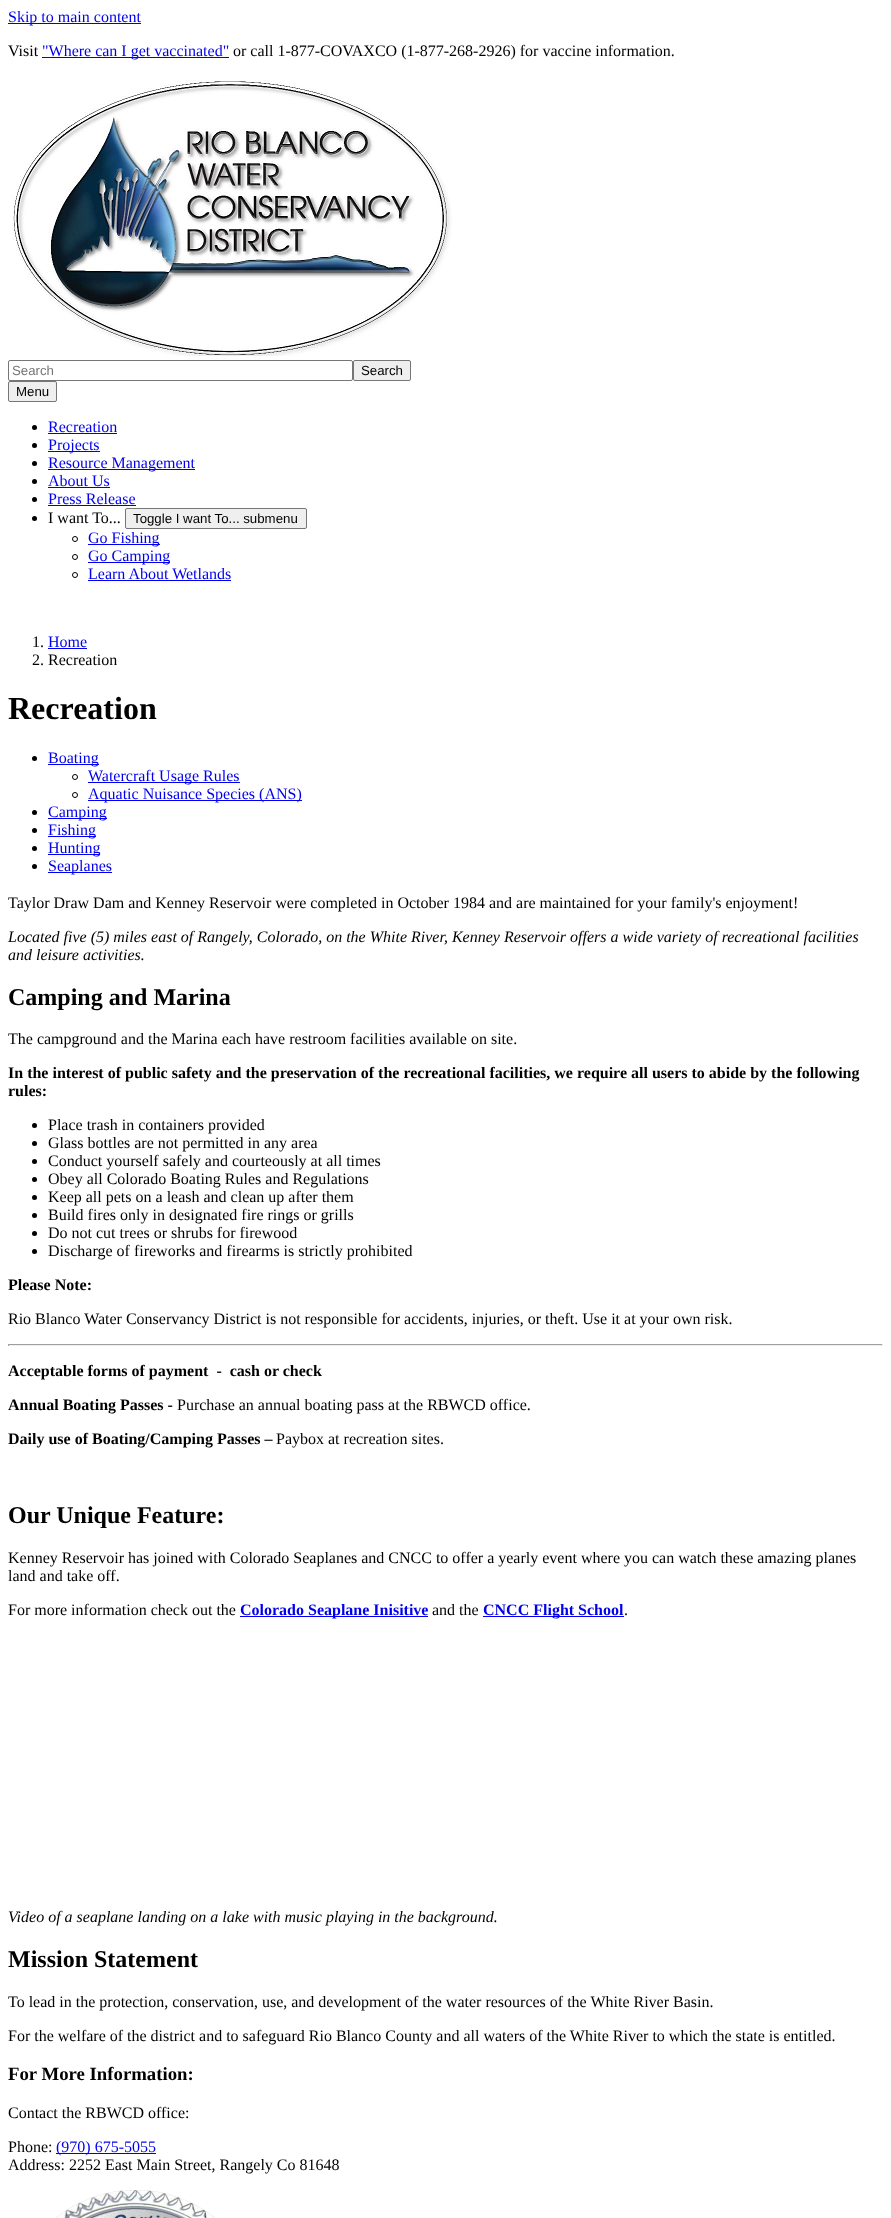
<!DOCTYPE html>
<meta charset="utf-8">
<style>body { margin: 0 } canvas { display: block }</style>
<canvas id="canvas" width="891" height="2218"></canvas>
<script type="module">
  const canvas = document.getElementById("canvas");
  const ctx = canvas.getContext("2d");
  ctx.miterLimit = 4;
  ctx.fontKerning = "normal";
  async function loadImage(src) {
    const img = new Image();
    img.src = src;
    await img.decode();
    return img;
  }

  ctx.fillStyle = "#ffffff";
  ctx.fillRect(0, 0, 891, 2218);
  ctx.fillStyle = "#0000ee";
  ctx.fillRect(8, 23, 133, 1);
  ctx.font = "16px Liberation Serif";
  ctx.fillText("Skip to main content", 8, 22);
  ctx.fillStyle = "#000000";
  ctx.fillText("Visit", 8, 56);
  ctx.fillStyle = "#0000ee";
  ctx.fillRect(42, 57, 187, 1);
  ctx.fillText("\"Where can I get vaccinated\"", 42, 56);
  ctx.fillStyle = "#000000";
  ctx.fillText("or call 1-877-COVAXCO (1-877-268-2926) for vaccine information.", 233, 56);
  ctx.drawImage(await loadImage("img1.png"), 12, 80, 440, 276);
  ctx.beginPath();
  ctx.roundRect(8.5, 360.5, 344, 20, 1.5);
  ctx.strokeStyle = "#767676";
  ctx.stroke();
  ctx.font = "13.25px Liberation Sans";
  ctx.fillStyle = "#757575";
  ctx.fillText("Search", 12, 375);
  ctx.fillStyle = "#efefef";
  ctx.beginPath();
  ctx.roundRect(353.5, 360.5, 57, 20, 1.5);
  ctx.fill();
  ctx.stroke();
  ctx.fillStyle = "#000000";
  ctx.fillText("Search", 361, 375);
  ctx.fillStyle = "#efefef";
  ctx.beginPath();
  ctx.roundRect(8.5, 381.5, 48, 20, 1.5);
  ctx.fill();
  ctx.stroke();
  ctx.fillStyle = "#000000";
  ctx.fillText("Menu", 16, 396);
  ctx.beginPath();
  ctx.arc(34.5, 427.5, 2.5, 0, Math.PI * 2);
  ctx.fill();
  ctx.font = "16px Liberation Serif";
  ctx.fillStyle = "#0000ee";
  ctx.fillText("Recreation", 48, 432);
  ctx.fillRect(48, 433, 69, 1);
  ctx.fillStyle = "#000000";
  ctx.beginPath();
  ctx.arc(34.5, 445.5, 2.5, 0, Math.PI * 2);
  ctx.fill();
  ctx.fillStyle = "#0000ee";
  ctx.fillRect(48, 451, 52, 1);
  ctx.fillText("Projects", 48, 450);
  ctx.fillStyle = "#000000";
  ctx.beginPath();
  ctx.arc(34.5, 463.5, 2.5, 0, Math.PI * 2);
  ctx.fill();
  ctx.fillStyle = "#0000ee";
  ctx.fillRect(48, 469, 147, 1);
  ctx.fillText("Resource Management", 48, 468);
  ctx.fillStyle = "#000000";
  ctx.beginPath();
  ctx.arc(34.5, 481.5, 2.5, 0, Math.PI * 2);
  ctx.fill();
  ctx.fillStyle = "#0000ee";
  ctx.fillText("About Us", 48, 486);
  ctx.fillRect(48, 487, 62, 1);
  ctx.fillStyle = "#000000";
  ctx.beginPath();
  ctx.arc(34.5, 499.5, 2.5, 0, Math.PI * 2);
  ctx.fill();
  ctx.fillStyle = "#0000ee";
  ctx.fillText("Press Release", 48, 504);
  ctx.fillRect(48, 505, 88, 1);
  ctx.fillStyle = "#000000";
  ctx.beginPath();
  ctx.arc(34.5, 518.5, 2.5, 0, Math.PI * 2);
  ctx.fill();
  ctx.fillText("I want To...", 48, 523);
  ctx.fillStyle = "#efefef";
  ctx.beginPath();
  ctx.roundRect(125.5, 508.5, 181, 20, 1.5);
  ctx.fill();
  ctx.stroke();
  ctx.font = "13.25px Liberation Sans";
  ctx.fillStyle = "#000000";
  ctx.fillText("Toggle I want To... submenu", 133, 523);
  ctx.beginPath();
  ctx.arc(75, 539, 2.5, 0, Math.PI * 2);
  ctx.strokeStyle = "#000000";
  ctx.stroke();
  ctx.fillStyle = "#0000ee";
  ctx.fillRect(88, 544, 72, 1);
  ctx.font = "16px Liberation Serif";
  ctx.fillText("Go Fishing", 88, 543);
  ctx.beginPath();
  ctx.arc(75, 557, 2.5, 0, Math.PI * 2);
  ctx.stroke();
  ctx.fillRect(88, 562, 82, 1);
  ctx.fillText("Go Camping", 88, 561);
  ctx.beginPath();
  ctx.arc(75, 575, 2.5, 0, Math.PI * 2);
  ctx.stroke();
  ctx.fillText("Learn About Wetlands", 88, 579);
  ctx.fillRect(88, 580, 143, 1);
  ctx.fillStyle = "#000000";
  ctx.fillText("1.", 32, 647);
  ctx.fillStyle = "#0000ee";
  ctx.fillText("Home", 48, 647);
  ctx.fillRect(48, 648, 39, 1);
  ctx.fillStyle = "#000000";
  ctx.fillText("2. Recreation", 32, 665);
  ctx.font = "bold 32px Liberation Serif";
  ctx.fillText("Recreation", 8, 719);
  ctx.beginPath();
  ctx.arc(34.5, 758.5, 2.5, 0, Math.PI * 2);
  ctx.fill();
  ctx.fillStyle = "#0000ee";
  ctx.fillRect(48, 764, 51, 1);
  ctx.font = "16px Liberation Serif";
  ctx.fillText("Boating", 48, 763);
  ctx.beginPath();
  ctx.arc(75, 777, 2.5, 0, Math.PI * 2);
  ctx.stroke();
  ctx.fillRect(88, 782, 152, 1);
  ctx.fillText("Watercraft Usage Rules", 88, 781);
  ctx.beginPath();
  ctx.arc(75, 795, 2.5, 0, Math.PI * 2);
  ctx.stroke();
  ctx.fillRect(88, 800, 214, 1);
  ctx.fillText("Aquatic Nuisance Species (ANS)", 88, 799);
  ctx.fillStyle = "#000000";
  ctx.beginPath();
  ctx.arc(34.5, 812.5, 2.5, 0, Math.PI * 2);
  ctx.fill();
  ctx.fillStyle = "#0000ee";
  ctx.fillRect(48, 818, 59, 1);
  ctx.fillText("Camping", 48, 817);
  ctx.fillStyle = "#000000";
  ctx.beginPath();
  ctx.arc(34.5, 830.5, 2.5, 0, Math.PI * 2);
  ctx.fill();
  ctx.fillStyle = "#0000ee";
  ctx.fillRect(48, 836, 48, 1);
  ctx.fillText("Fishing", 48, 835);
  ctx.fillStyle = "#000000";
  ctx.beginPath();
  ctx.arc(34.5, 848.5, 2.5, 0, Math.PI * 2);
  ctx.fill();
  ctx.fillStyle = "#0000ee";
  ctx.fillRect(48, 854, 52, 1);
  ctx.fillText("Hunting", 48, 853);
  ctx.fillStyle = "#000000";
  ctx.beginPath();
  ctx.arc(34.5, 866.5, 2.5, 0, Math.PI * 2);
  ctx.fill();
  ctx.fillStyle = "#0000ee";
  ctx.fillRect(48, 872, 64, 1);
  ctx.fillText("Seaplanes", 48, 871);
  ctx.fillStyle = "#000000";
  ctx.fillText("Taylor Draw Dam and Kenney Reservoir were completed in October 1984 and are maintained for your family's enjoyment!", 8, 908);
  ctx.font = "italic 16px Liberation Serif";
  ctx.fillText("Located five (5) miles east of Rangely, Colorado, on the White River, Kenney Reservoir offers a wide variety of recreational facilities", 8, 942);
  ctx.fillText("and leisure activities.", 8, 960);
  ctx.font = "bold 24px Liberation Serif";
  ctx.fillText("Camping and Marina", 8, 1005);
  ctx.font = "16px Liberation Serif";
  ctx.fillText("The campground and the Marina each have restroom facilities available on site.", 8, 1044);
  ctx.font = "bold 16px Liberation Serif";
  ctx.fillText("In the interest of public safety and the preservation of the recreational facilities, we require all users to abide by the following", 8, 1078);
  ctx.fillText("rules:", 8, 1096);
  ctx.beginPath();
  ctx.arc(34.5, 1125.5, 2.5, 0, Math.PI * 2);
  ctx.fill();
  ctx.font = "16px Liberation Serif";
  ctx.fillText("Place trash in containers provided", 48, 1130);
  ctx.beginPath();
  ctx.arc(34.5, 1143.5, 2.5, 0, Math.PI * 2);
  ctx.fill();
  ctx.fillText("Glass bottles are not permitted in any area", 48, 1148);
  ctx.beginPath();
  ctx.arc(34.5, 1161.5, 2.5, 0, Math.PI * 2);
  ctx.fill();
  ctx.fillText("Conduct yourself safely and courteously at all times", 48, 1166);
  ctx.beginPath();
  ctx.arc(34.5, 1179.5, 2.5, 0, Math.PI * 2);
  ctx.fill();
  ctx.fillText("Obey all Colorado Boating Rules and Regulations", 48, 1184);
  ctx.beginPath();
  ctx.arc(34.5, 1197.5, 2.5, 0, Math.PI * 2);
  ctx.fill();
  ctx.fillText("Keep all pets on a leash and clean up after them", 48, 1202);
  ctx.beginPath();
  ctx.arc(34.5, 1215.5, 2.5, 0, Math.PI * 2);
  ctx.fill();
  ctx.fillText("Build fires only in designated fire rings or grills", 48, 1220);
  ctx.beginPath();
  ctx.arc(34.5, 1233.5, 2.5, 0, Math.PI * 2);
  ctx.fill();
  ctx.fillText("Do not cut trees or shrubs for firewood", 48, 1238);
  ctx.beginPath();
  ctx.arc(34.5, 1251.5, 2.5, 0, Math.PI * 2);
  ctx.fill();
  ctx.fillText("Discharge of fireworks and firearms is strictly prohibited", 48, 1256);
  ctx.font = "bold 16px Liberation Serif";
  ctx.fillText("Please Note:", 8, 1290);
  ctx.font = "16px Liberation Serif";
  ctx.fillText("Rio Blanco Water Conservancy District is not responsible for accidents, injuries, or theft. Use it at your own risk.", 8, 1324);
  ctx.fillStyle = "#9f9f9f";
  ctx.fillRect(8, 1344, 875, 1);
  ctx.fillStyle = "#eeeeee";
  ctx.fillRect(882, 1344, 1, 2);
  ctx.fillRect(8, 1345, 875, 1);
  ctx.fillStyle = "#9f9f9f";
  ctx.fillRect(8, 1344, 1, 2);
  ctx.font = "bold 16px Liberation Serif";
  ctx.fillStyle = "#000000";
  ctx.fillText("Acceptable forms of payment  -  cash or check", 8, 1376);
  ctx.fillText("Annual Boating Passes -", 8, 1410);
  ctx.font = "16px Liberation Serif";
  ctx.fillText("Purchase an annual boating pass at the RBWCD office.", 177, 1410);
  ctx.font = "bold 16px Liberation Serif";
  ctx.fillText("Daily use of Boating/Camping Passes –", 8, 1444);
  ctx.font = "16px Liberation Serif";
  ctx.fillText("Paybox at recreation sites.", 276, 1444);
  ctx.font = "bold 24px Liberation Serif";
  ctx.fillText("Our Unique Feature:", 8, 1523);
  ctx.font = "16px Liberation Serif";
  ctx.fillText("Kenney Reservoir has joined with Colorado Seaplanes and CNCC to offer a yearly event where you can watch these amazing planes", 8, 1563);
  ctx.fillText("land and take off.", 8, 1581);
  ctx.fillText("For more information check out the", 8, 1615);
  ctx.fillStyle = "#0000ee";
  ctx.fillRect(240, 1616, 188, 1);
  ctx.font = "bold 16px Liberation Serif";
  ctx.fillText("Colorado Seaplane Inisitive", 240, 1615);
  ctx.font = "16px Liberation Serif";
  ctx.fillStyle = "#000000";
  ctx.fillText("and the", 432, 1615);
  ctx.fillStyle = "#0000ee";
  ctx.fillRect(483, 1616, 141, 1);
  ctx.font = "bold 16px Liberation Serif";
  ctx.fillText("CNCC Flight School", 483, 1615);
  ctx.font = "16px Liberation Serif";
  ctx.fillStyle = "#000000";
  ctx.fillText(".", 624, 1615);
  ctx.font = "italic 16px Liberation Serif";
  ctx.fillText("Video of a seaplane landing on a lake with music playing in the background.", 8, 1922);
  ctx.font = "bold 24px Liberation Serif";
  ctx.fillText("Mission Statement", 8, 1967);
  ctx.font = "16px Liberation Serif";
  ctx.fillText("To lead in the protection, conservation, use, and development of the water resources of the White River Basin.", 8, 2007);
  ctx.fillText("For the welfare of the district and to safeguard Rio Blanco County and all waters of the White River to which the state is entitled.", 8, 2041);
  ctx.font = "bold 18.75px Liberation Serif";
  ctx.fillText("For More Information:", 8, 2080);
  ctx.font = "16px Liberation Serif";
  ctx.fillText("Contact the RBWCD office:", 8, 2118);
  ctx.fillText("Phone:", 8, 2152);
  ctx.fillStyle = "#0000ee";
  ctx.fillRect(56, 2153, 100, 1);
  ctx.fillText("(970) 675-5055", 56, 2152);
  ctx.fillStyle = "#000000";
  ctx.fillText("Address: 2252 East Main Street, Rangely Co 81648", 8, 2170);
  ctx.drawImage(await loadImage("img2.png"), 56, 2190, 159, 28);
</script>
